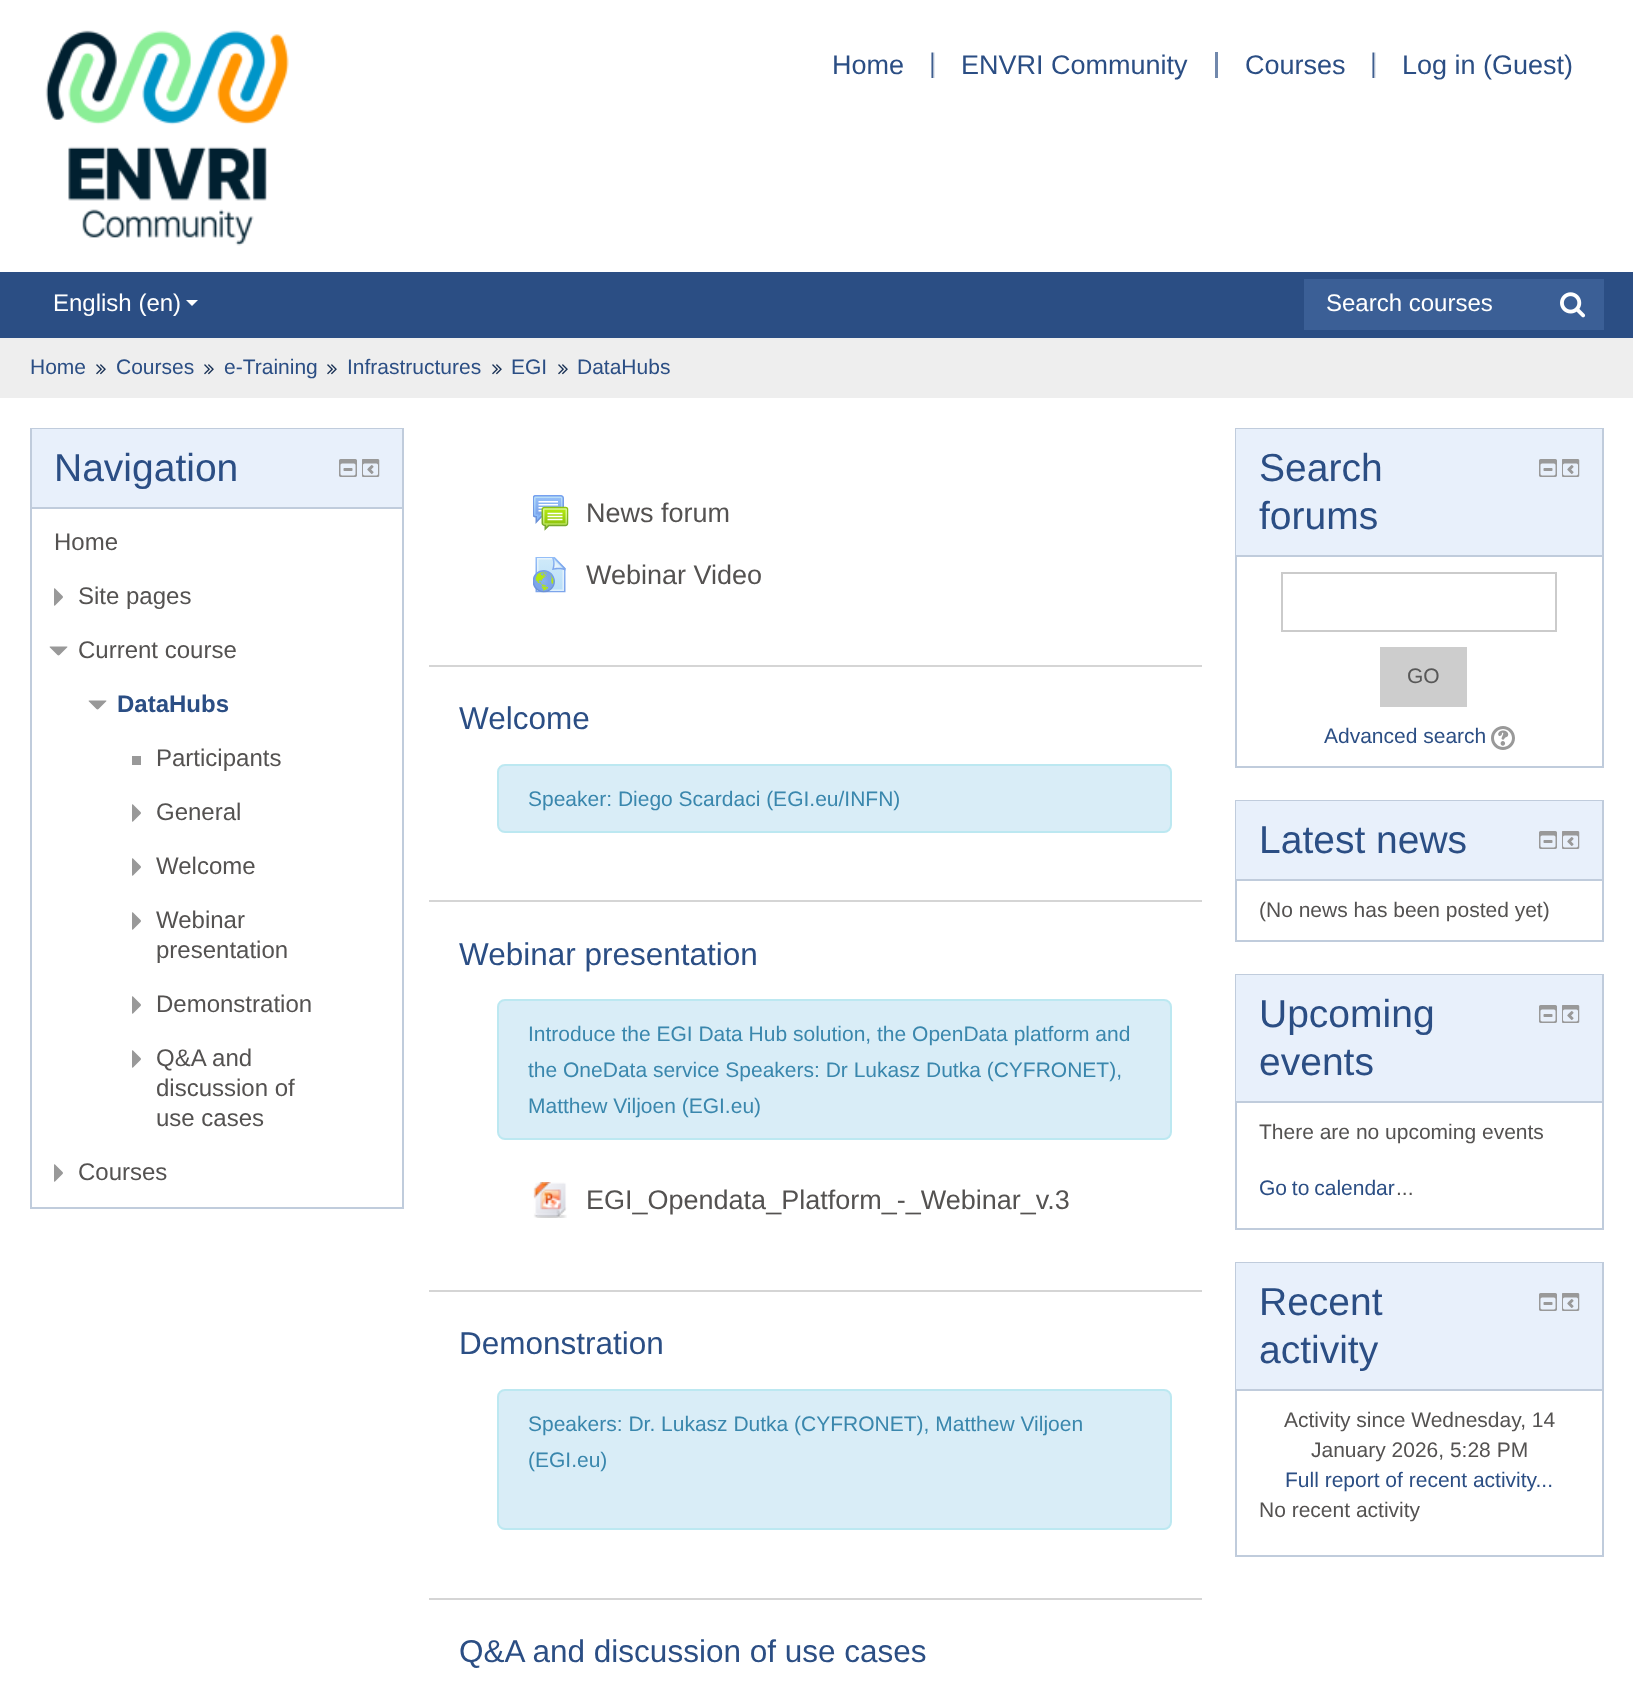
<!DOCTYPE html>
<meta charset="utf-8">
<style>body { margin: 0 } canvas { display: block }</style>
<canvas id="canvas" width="1633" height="1698"></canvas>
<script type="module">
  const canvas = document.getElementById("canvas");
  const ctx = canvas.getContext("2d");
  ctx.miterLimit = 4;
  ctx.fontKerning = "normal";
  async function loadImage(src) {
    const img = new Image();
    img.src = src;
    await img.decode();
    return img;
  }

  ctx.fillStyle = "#ffffff";
  ctx.fillRect(0, 0, 1633, 1698);
  ctx.drawImage(await loadImage("img1.png"), 45, 30, 244, 216);
  ctx.drawImage(await loadImage("img2.png"), 931, 52, 4, 26);
  ctx.font = "27px Liberation Sans";
  ctx.fillStyle = "#2b4e84";
  ctx.fillText("Home", 832, 74);
  ctx.fillStyle = "#7188ac";
  ctx.fillRect(1215, 52, 3, 26);
  ctx.fillStyle = "#2b4e84";
  ctx.fillText("ENVRI Community", 961, 74);
  ctx.drawImage(await loadImage("img2.png"), 1372, 52, 4, 26);
  ctx.fillText("Courses", 1245, 74);
  ctx.fillText("Log in (Guest)", 1402, 74);
  ctx.fillRect(0, 272, 1633, 66);
  ctx.font = "24px Liberation Sans";
  ctx.fillStyle = "#ffffff";
  ctx.fillText("English (en)", 53, 311);
  ctx.beginPath();
  ctx.moveTo(186, 300);
  ctx.lineTo(198, 300);
  ctx.lineTo(192, 306);
  ctx.closePath();
  ctx.fill();
  ctx.fillStyle = "#3b5f96";
  ctx.fillRect(1304, 279, 300, 51);
  ctx.fillStyle = "#ffffff";
  ctx.fillText("Search courses", 1326, 311);
  ctx.drawImage(await loadImage("img3.png"), 1560, 292, 26, 26);
  ctx.fillStyle = "#eeeeee";
  ctx.fillRect(0, 338, 1633, 60);
  ctx.font = "21px Liberation Sans";
  ctx.fillStyle = "#2b4e84";
  ctx.fillText("Home", 30, 374);
  ctx.drawImage(await loadImage("img4.png"), 96, 364, 10, 11);
  ctx.fillText("Courses", 116, 374);
  ctx.drawImage(await loadImage("img4.png"), 204, 364, 10, 11);
  ctx.fillText("e-Training", 224, 374);
  ctx.drawImage(await loadImage("img4.png"), 327, 364, 10, 11);
  ctx.fillText("Infrastructures", 347, 374);
  ctx.drawImage(await loadImage("img4.png"), 492, 364, 10, 11);
  ctx.fillText("EGI", 511, 374);
  ctx.drawImage(await loadImage("img4.png"), 558, 364, 10, 11);
  ctx.fillText("DataHubs", 577, 374);
  ctx.strokeStyle = "#c0ccdc";
  ctx.lineWidth = 2;
  ctx.strokeRect(31, 429, 372, 779);
  ctx.fillStyle = "#e8f0fb";
  ctx.fillRect(32, 429, 370, 78);
  ctx.fillStyle = "#c0ccdc";
  ctx.fillRect(32, 507, 370, 2);
  ctx.font = "39px Liberation Sans";
  ctx.fillStyle = "#2b4e84";
  ctx.fillText("Navigation", 54, 481);
  ctx.drawImage(await loadImage("img5.png"), 339, 459, 18, 18);
  ctx.drawImage(await loadImage("img6.png"), 362, 459, 18, 18);
  ctx.font = "24px Liberation Sans";
  ctx.fillStyle = "#545251";
  ctx.fillText("Home", 54, 550);
  ctx.drawImage(await loadImage("img7.png"), 54, 588, 9, 18);
  ctx.fillText("Site pages", 78, 604);
  ctx.drawImage(await loadImage("img8.png"), 49, 646, 19, 10);
  ctx.fillText("Current course", 78, 658);
  ctx.drawImage(await loadImage("img8.png"), 88, 700, 19, 10);
  ctx.font = "bold 24px Liberation Sans";
  ctx.fillStyle = "#2b4e84";
  ctx.fillText("DataHubs", 117, 712);
  ctx.fillStyle = "#999999";
  ctx.fillRect(132, 756, 9, 9);
  ctx.font = "24px Liberation Sans";
  ctx.fillStyle = "#545251";
  ctx.fillText("Participants", 156, 766);
  ctx.drawImage(await loadImage("img7.png"), 132, 804, 9, 18);
  ctx.fillText("General", 156, 820);
  ctx.drawImage(await loadImage("img7.png"), 132, 858, 9, 18);
  ctx.fillText("Welcome", 156, 874);
  ctx.drawImage(await loadImage("img7.png"), 132, 912, 9, 18);
  ctx.fillText("Webinar", 156, 928);
  ctx.fillText("presentation", 156, 958);
  ctx.drawImage(await loadImage("img7.png"), 132, 996, 9, 18);
  ctx.fillText("Demonstration", 156, 1012);
  ctx.drawImage(await loadImage("img7.png"), 132, 1050, 9, 18);
  ctx.fillText("Q&A and", 156, 1066);
  ctx.fillText("discussion of", 156, 1096);
  ctx.fillText("use cases", 156, 1126);
  ctx.drawImage(await loadImage("img7.png"), 54, 1164, 9, 18);
  ctx.fillText("Courses", 78, 1180);
  ctx.fillStyle = "#d5d5d5";
  ctx.fillRect(429, 665, 773, 2);
  ctx.drawImage(await loadImage("img9.png"), 533, 495, 36, 36);
  ctx.font = "27px Liberation Sans";
  ctx.fillStyle = "#545251";
  ctx.fillText("News forum", 586, 522);
  ctx.drawImage(await loadImage("img10.png"), 533, 557, 33, 36);
  ctx.fillText("Webinar Video", 586, 584);
  ctx.fillStyle = "#d5d5d5";
  ctx.fillRect(429, 900, 773, 2);
  ctx.font = "31.5px Liberation Sans";
  ctx.fillStyle = "#2b4e84";
  ctx.fillText("Welcome", 459, 729);
  ctx.fillStyle = "#d9edf7";
  ctx.beginPath();
  ctx.roundRect(498, 765, 673, 67, 7);
  ctx.fill();
  ctx.strokeStyle = "#bce8f1";
  ctx.stroke();
  ctx.font = "21px Liberation Sans";
  ctx.fillStyle = "#3a87ad";
  ctx.fillText("Speaker: Diego Scardaci (EGI.eu/INFN)", 528, 806);
  ctx.fillStyle = "#d5d5d5";
  ctx.fillRect(429, 1290, 773, 2);
  ctx.font = "31.5px Liberation Sans";
  ctx.fillStyle = "#2b4e84";
  ctx.fillText("Webinar presentation", 459, 965);
  ctx.fillStyle = "#d9edf7";
  ctx.beginPath();
  ctx.roundRect(498, 1000, 673, 139, 7);
  ctx.fill();
  ctx.stroke();
  ctx.font = "21px Liberation Sans";
  ctx.fillStyle = "#3a87ad";
  ctx.fillText("Introduce the EGI Data Hub solution, the OpenData platform and", 528, 1041);
  ctx.fillText("the OneData service Speakers: Dr Lukasz Dutka (CYFRONET),", 528, 1077);
  ctx.fillText("Matthew Viljoen (EGI.eu)", 528, 1113);
  ctx.drawImage(await loadImage("img11.png"), 533, 1182, 34, 36);
  ctx.font = "27px Liberation Sans";
  ctx.fillStyle = "#545251";
  ctx.fillText("EGI_Opendata_Platform_-_Webinar_v.3", 586, 1209);
  ctx.fillStyle = "#d5d5d5";
  ctx.fillRect(429, 1598, 773, 2);
  ctx.font = "31.5px Liberation Sans";
  ctx.fillStyle = "#2b4e84";
  ctx.fillText("Demonstration", 459, 1354);
  ctx.fillStyle = "#d9edf7";
  ctx.beginPath();
  ctx.roundRect(498, 1390, 673, 139, 7);
  ctx.fill();
  ctx.stroke();
  ctx.font = "21px Liberation Sans";
  ctx.fillStyle = "#3a87ad";
  ctx.fillText("Speakers: Dr. Lukasz Dutka (CYFRONET), Matthew Viljoen", 528, 1431);
  ctx.fillText("(EGI.eu)", 528, 1467);
  ctx.font = "31.5px Liberation Sans";
  ctx.fillStyle = "#2b4e84";
  ctx.fillText("Q&A and discussion of use cases", 459, 1662);
  ctx.strokeStyle = "#c0ccdc";
  ctx.strokeRect(1236, 429, 367, 338);
  ctx.fillStyle = "#e8f0fb";
  ctx.fillRect(1236, 429, 366, 126);
  ctx.fillStyle = "#c0ccdc";
  ctx.fillRect(1236, 555, 366, 2);
  ctx.font = "39px Liberation Sans";
  ctx.fillStyle = "#2b4e84";
  ctx.fillText("Search", 1259, 481);
  ctx.fillText("forums", 1259, 529);
  ctx.drawImage(await loadImage("img5.png"), 1539, 459, 18, 18);
  ctx.drawImage(await loadImage("img6.png"), 1562, 459, 18, 18);
  ctx.strokeStyle = "#cbcbcb";
  ctx.strokeRect(1282, 573, 274, 58);
  ctx.fillStyle = "#cdcdcd";
  ctx.fillRect(1380, 647, 87, 60);
  ctx.font = "21px Liberation Sans";
  ctx.fillStyle = "#585858";
  ctx.fillText("GO", 1407, 683);
  ctx.fillStyle = "#2b4e84";
  ctx.fillText("Advanced search", 1324, 743);
  ctx.drawImage(await loadImage("img12.png"), 1491, 726, 24, 24);
  ctx.strokeStyle = "#c0ccdc";
  ctx.strokeRect(1236, 801, 367, 140);
  ctx.fillStyle = "#e8f0fb";
  ctx.fillRect(1236, 801, 366, 78);
  ctx.fillStyle = "#c0ccdc";
  ctx.fillRect(1236, 879, 366, 2);
  ctx.font = "39px Liberation Sans";
  ctx.fillStyle = "#2b4e84";
  ctx.fillText("Latest news", 1259, 853);
  ctx.drawImage(await loadImage("img5.png"), 1539, 831, 18, 18);
  ctx.drawImage(await loadImage("img6.png"), 1562, 831, 18, 18);
  ctx.font = "21px Liberation Sans";
  ctx.fillStyle = "#545251";
  ctx.fillText("(No news has been posted yet)", 1259, 917);
  ctx.strokeRect(1236, 975, 367, 254);
  ctx.fillStyle = "#e8f0fb";
  ctx.fillRect(1236, 975, 366, 126);
  ctx.fillStyle = "#c0ccdc";
  ctx.fillRect(1236, 1101, 366, 2);
  ctx.font = "39px Liberation Sans";
  ctx.fillStyle = "#2b4e84";
  ctx.fillText("Upcoming", 1259, 1027);
  ctx.fillText("events", 1259, 1075);
  ctx.drawImage(await loadImage("img5.png"), 1539, 1005, 18, 18);
  ctx.drawImage(await loadImage("img13.png"), 1562, 1005, 18, 18);
  ctx.font = "21px Liberation Sans";
  ctx.fillStyle = "#545251";
  ctx.fillText("There are no upcoming events", 1259, 1139);
  ctx.wordSpacing = "-1px";
  ctx.fillStyle = "#2b4e84";
  ctx.fillText("Go to calendar", 1259, 1195);
  ctx.wordSpacing = "0px";
  ctx.fillStyle = "#545251";
  ctx.fillText("...", 1396, 1195);
  ctx.strokeRect(1236, 1263, 367, 293);
  ctx.fillStyle = "#e8f0fb";
  ctx.fillRect(1236, 1263, 366, 126);
  ctx.fillStyle = "#c0ccdc";
  ctx.fillRect(1236, 1389, 366, 2);
  ctx.font = "39px Liberation Sans";
  ctx.fillStyle = "#2b4e84";
  ctx.fillText("Recent", 1259, 1315);
  ctx.fillText("activity", 1259, 1363);
  ctx.drawImage(await loadImage("img5.png"), 1539, 1293, 18, 18);
  ctx.drawImage(await loadImage("img6.png"), 1562, 1293, 18, 18);
  ctx.font = "21px Liberation Sans";
  ctx.fillStyle = "#545251";
  ctx.fillText("Activity since Wednesday, 14", 1284, 1427);
  ctx.fillText("January 2026, 5:28 PM", 1311, 1457);
  ctx.fillStyle = "#2b4e84";
  ctx.fillText("Full report of recent activity...", 1285, 1487);
  ctx.fillStyle = "#545251";
  ctx.fillText("No recent activity", 1259, 1517);
</script>
